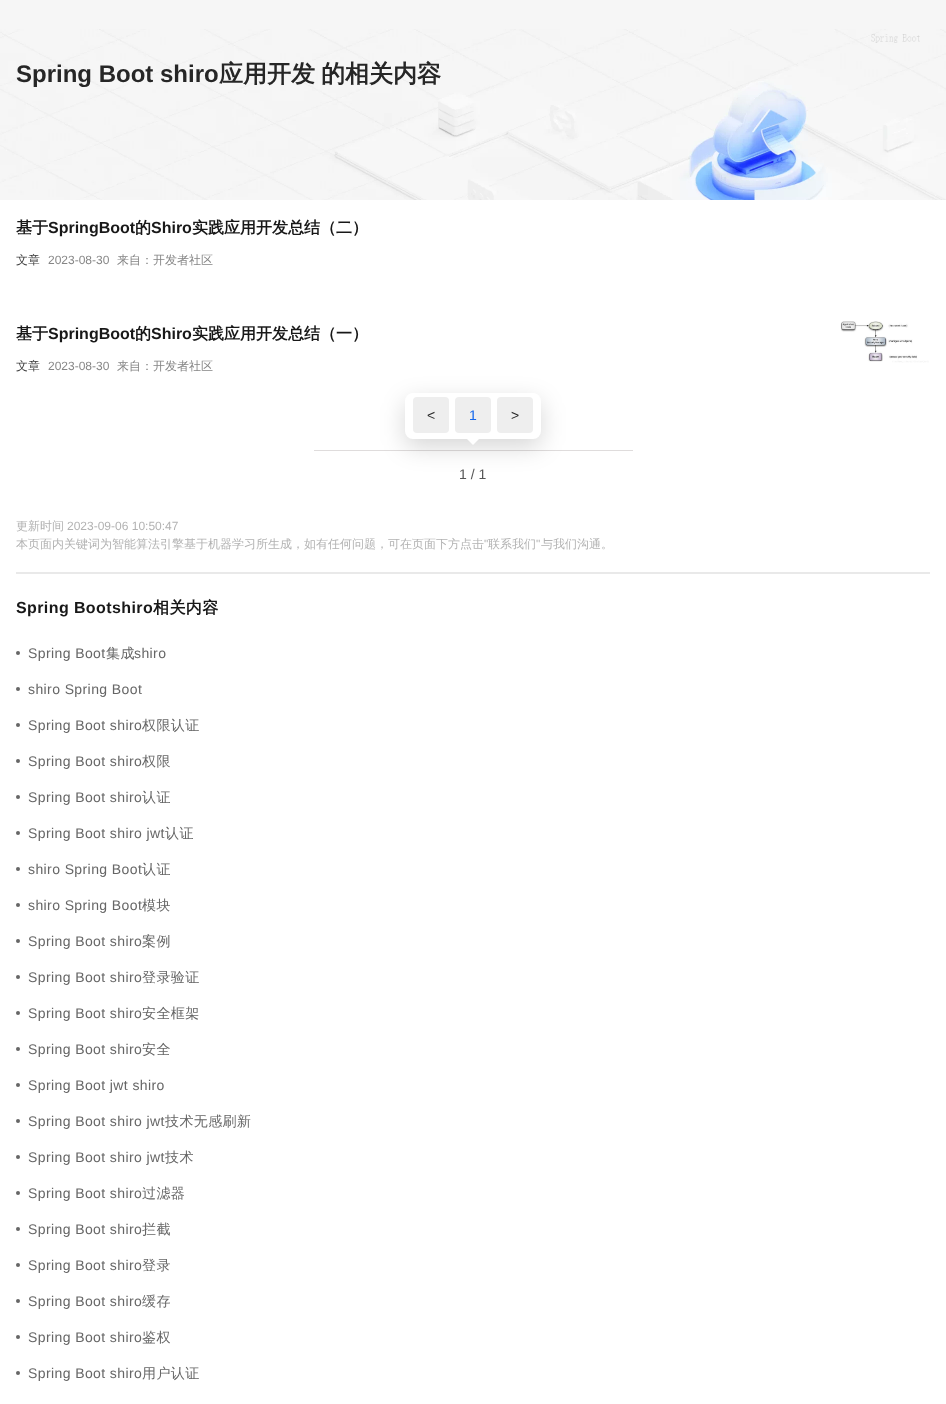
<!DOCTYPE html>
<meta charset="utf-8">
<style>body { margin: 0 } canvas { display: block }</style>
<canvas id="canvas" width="946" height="1404"></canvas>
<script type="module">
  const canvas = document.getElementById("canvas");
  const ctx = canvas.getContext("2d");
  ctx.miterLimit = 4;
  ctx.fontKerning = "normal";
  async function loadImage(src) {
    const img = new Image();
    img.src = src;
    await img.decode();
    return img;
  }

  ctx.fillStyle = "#ffffff";
  ctx.fillRect(0, 0, 946, 1404);
  ctx.fillStyle = "#f6f6f6";
  ctx.fillRect(0, 0, 946, 29);
  ctx.drawImage(await loadImage("img1.png"), 0, 29, 946, 171);
  ctx.drawImage(await loadImage("img2.png"), 871, 34, 49, 9);
  ctx.font = "bold 24px Liberation Sans";
  ctx.fillStyle = "#262626";
  ctx.fillText("Spring Boot shiro", 16, 82);
  ctx.font = "bold 24px WenQuanYi Zen Hei";
  ctx.fillText("应用开发", 219, 82);
  ctx.fillText("的相关内容", 321, 82);
  ctx.font = "bold 16px WenQuanYi Zen Hei";
  ctx.fillStyle = "#181818";
  ctx.fillText("基于", 16, 233);
  ctx.font = "bold 16px Liberation Sans";
  ctx.fillText("SpringBoot", 48, 233);
  ctx.font = "bold 16px WenQuanYi Zen Hei";
  ctx.fillText("的", 135, 233);
  ctx.font = "bold 16px Liberation Sans";
  ctx.fillText("Shiro", 151, 233);
  ctx.font = "bold 16px WenQuanYi Zen Hei";
  ctx.fillText("实践应用开发总结（二）", 192, 233);
  ctx.font = "500 12px WenQuanYi Zen Hei";
  ctx.fillStyle = "#3d3d3d";
  ctx.fillText("文章", 16, 264);
  ctx.font = "12px Liberation Sans";
  ctx.fillStyle = "#868686";
  ctx.fillText("2023-08-30", 48, 264);
  ctx.font = "500 12px WenQuanYi Zen Hei";
  ctx.fillText("来自：开发者社区", 117, 264);
  ctx.font = "bold 16px WenQuanYi Zen Hei";
  ctx.fillStyle = "#181818";
  ctx.fillText("基于", 16, 339);
  ctx.font = "bold 16px Liberation Sans";
  ctx.fillText("SpringBoot", 48, 339);
  ctx.font = "bold 16px WenQuanYi Zen Hei";
  ctx.fillText("的", 135, 339);
  ctx.font = "bold 16px Liberation Sans";
  ctx.fillText("Shiro", 151, 339);
  ctx.font = "bold 16px WenQuanYi Zen Hei";
  ctx.fillText("实践应用开发总结（一）", 192, 339);
  ctx.font = "500 12px WenQuanYi Zen Hei";
  ctx.fillStyle = "#3d3d3d";
  ctx.fillText("文章", 16, 370);
  ctx.font = "12px Liberation Sans";
  ctx.fillStyle = "#868686";
  ctx.fillText("2023-08-30", 48, 370);
  ctx.font = "500 12px WenQuanYi Zen Hei";
  ctx.fillText("来自：开发者社区", 117, 370);
  ctx.drawImage(await loadImage("img3.png"), 840, 321, 89, 42);
  ctx.fillStyle = "#dfdcdc";
  ctx.fillRect(314, 450, 319, 1);
  ctx.fillStyle = "rgba(0, 0, 0, 0.16)";
  ctx.filter = "blur(12px)";
  ctx.beginPath();
  ctx.roundRect(405, 401, 136, 46, 8);
  ctx.fill();
  ctx.filter = "none";
  ctx.fillStyle = "#ffffff";
  ctx.beginPath();
  ctx.roundRect(405, 393, 136, 46, 8);
  ctx.fill();
  ctx.fillStyle = "#eeeeee";
  ctx.beginPath();
  ctx.roundRect(413, 397, 36, 36, 4);
  ctx.fill();
  ctx.font = "14px Liberation Sans";
  ctx.fillStyle = "#262626";
  ctx.fillText("<", 427, 420);
  ctx.fillStyle = "#eeeeee";
  ctx.beginPath();
  ctx.roundRect(455, 397, 36, 36, 4);
  ctx.fill();
  ctx.fillStyle = "#1366ec";
  ctx.fillText("1", 469, 420);
  ctx.fillStyle = "#eeeeee";
  ctx.beginPath();
  ctx.roundRect(497, 397, 36, 36, 4);
  ctx.fill();
  ctx.fillStyle = "#262626";
  ctx.fillText(">", 511, 420);
  ctx.fillStyle = "#ffffff";
  ctx.beginPath();
  ctx.moveTo(463, 435);
  ctx.lineTo(483, 435);
  ctx.lineTo(473, 445);
  ctx.closePath();
  ctx.fill();
  ctx.fillStyle = "#555555";
  ctx.fillText("1 / 1", 459, 479);
  ctx.fillStyle = "#e9e9e9";
  ctx.fillRect(16, 572, 914, 2);
  ctx.font = "500 12px WenQuanYi Zen Hei";
  ctx.fillStyle = "#b2b2b2";
  ctx.fillText("更新时间", 16, 530);
  ctx.font = "12px Liberation Sans";
  ctx.fillText("2023-09-06 10:50:47", 67, 530);
  ctx.font = "500 12px WenQuanYi Zen Hei";
  ctx.fillText("本页面内关键词为智能算法引擎基于机器学习所生成，如有任何问题，可在页面下方点击", 16, 548);
  ctx.font = "12px Liberation Sans";
  ctx.fillText("\"", 484, 548);
  ctx.font = "500 12px WenQuanYi Zen Hei";
  ctx.fillText("联系我们", 488, 548);
  ctx.font = "12px Liberation Sans";
  ctx.fillText("\"", 536, 548);
  ctx.font = "500 12px WenQuanYi Zen Hei";
  ctx.fillText("与我们沟通。", 541, 548);
  ctx.letterSpacing = "0.4px";
  ctx.font = "bold 16px Liberation Sans";
  ctx.fillStyle = "#181818";
  ctx.fillText("Spring Bootshiro", 16, 613);
  ctx.font = "bold 16px WenQuanYi Zen Hei";
  ctx.fillText("相关内容", 153, 613);
  ctx.fillStyle = "#666666";
  ctx.beginPath();
  ctx.arc(18, 653, 2, 0, Math.PI * 2);
  ctx.fill();
  ctx.font = "14px Liberation Sans";
  ctx.fillText("Spring Boot", 28, 658);
  ctx.font = "500 14px WenQuanYi Zen Hei";
  ctx.fillText("集成", 106, 658);
  ctx.font = "14px Liberation Sans";
  ctx.fillText("shiro", 134, 658);
  ctx.beginPath();
  ctx.arc(18, 689, 2, 0, Math.PI * 2);
  ctx.fill();
  ctx.fillText("shiro Spring Boot", 28, 694);
  ctx.beginPath();
  ctx.arc(18, 725, 2, 0, Math.PI * 2);
  ctx.fill();
  ctx.fillText("Spring Boot shiro", 28, 730);
  ctx.font = "500 14px WenQuanYi Zen Hei";
  ctx.fillText("权限认证", 142, 730);
  ctx.beginPath();
  ctx.arc(18, 761, 2, 0, Math.PI * 2);
  ctx.fill();
  ctx.font = "14px Liberation Sans";
  ctx.fillText("Spring Boot shiro", 28, 766);
  ctx.font = "500 14px WenQuanYi Zen Hei";
  ctx.fillText("权限", 142, 766);
  ctx.beginPath();
  ctx.arc(18, 797, 2, 0, Math.PI * 2);
  ctx.fill();
  ctx.font = "14px Liberation Sans";
  ctx.fillText("Spring Boot shiro", 28, 802);
  ctx.font = "500 14px WenQuanYi Zen Hei";
  ctx.fillText("认证", 142, 802);
  ctx.beginPath();
  ctx.arc(18, 833, 2, 0, Math.PI * 2);
  ctx.fill();
  ctx.font = "14px Liberation Sans";
  ctx.fillText("Spring Boot shiro jwt", 28, 838);
  ctx.font = "500 14px WenQuanYi Zen Hei";
  ctx.fillText("认证", 165, 838);
  ctx.beginPath();
  ctx.arc(18, 869, 2, 0, Math.PI * 2);
  ctx.fill();
  ctx.font = "14px Liberation Sans";
  ctx.fillText("shiro Spring Boot", 28, 874);
  ctx.font = "500 14px WenQuanYi Zen Hei";
  ctx.fillText("认证", 142, 874);
  ctx.beginPath();
  ctx.arc(18, 905, 2, 0, Math.PI * 2);
  ctx.fill();
  ctx.font = "14px Liberation Sans";
  ctx.fillText("shiro Spring Boot", 28, 910);
  ctx.font = "500 14px WenQuanYi Zen Hei";
  ctx.fillText("模块", 142, 910);
  ctx.beginPath();
  ctx.arc(18, 941, 2, 0, Math.PI * 2);
  ctx.fill();
  ctx.font = "14px Liberation Sans";
  ctx.fillText("Spring Boot shiro", 28, 946);
  ctx.font = "500 14px WenQuanYi Zen Hei";
  ctx.fillText("案例", 142, 946);
  ctx.beginPath();
  ctx.arc(18, 977, 2, 0, Math.PI * 2);
  ctx.fill();
  ctx.font = "14px Liberation Sans";
  ctx.fillText("Spring Boot shiro", 28, 982);
  ctx.font = "500 14px WenQuanYi Zen Hei";
  ctx.fillText("登录验证", 142, 982);
  ctx.beginPath();
  ctx.arc(18, 1013, 2, 0, Math.PI * 2);
  ctx.fill();
  ctx.font = "14px Liberation Sans";
  ctx.fillText("Spring Boot shiro", 28, 1018);
  ctx.font = "500 14px WenQuanYi Zen Hei";
  ctx.fillText("安全框架", 142, 1018);
  ctx.beginPath();
  ctx.arc(18, 1049, 2, 0, Math.PI * 2);
  ctx.fill();
  ctx.font = "14px Liberation Sans";
  ctx.fillText("Spring Boot shiro", 28, 1054);
  ctx.font = "500 14px WenQuanYi Zen Hei";
  ctx.fillText("安全", 142, 1054);
  ctx.beginPath();
  ctx.arc(18, 1085, 2, 0, Math.PI * 2);
  ctx.fill();
  ctx.font = "14px Liberation Sans";
  ctx.fillText("Spring Boot jwt shiro", 28, 1090);
  ctx.beginPath();
  ctx.arc(18, 1121, 2, 0, Math.PI * 2);
  ctx.fill();
  ctx.fillText("Spring Boot shiro jwt", 28, 1126);
  ctx.font = "500 14px WenQuanYi Zen Hei";
  ctx.fillText("技术无感刷新", 165, 1126);
  ctx.beginPath();
  ctx.arc(18, 1157, 2, 0, Math.PI * 2);
  ctx.fill();
  ctx.font = "14px Liberation Sans";
  ctx.fillText("Spring Boot shiro jwt", 28, 1162);
  ctx.font = "500 14px WenQuanYi Zen Hei";
  ctx.fillText("技术", 165, 1162);
  ctx.beginPath();
  ctx.arc(18, 1193, 2, 0, Math.PI * 2);
  ctx.fill();
  ctx.font = "14px Liberation Sans";
  ctx.fillText("Spring Boot shiro", 28, 1198);
  ctx.font = "500 14px WenQuanYi Zen Hei";
  ctx.fillText("过滤器", 142, 1198);
  ctx.beginPath();
  ctx.arc(18, 1229, 2, 0, Math.PI * 2);
  ctx.fill();
  ctx.font = "14px Liberation Sans";
  ctx.fillText("Spring Boot shiro", 28, 1234);
  ctx.font = "500 14px WenQuanYi Zen Hei";
  ctx.fillText("拦截", 142, 1234);
  ctx.beginPath();
  ctx.arc(18, 1265, 2, 0, Math.PI * 2);
  ctx.fill();
  ctx.font = "14px Liberation Sans";
  ctx.fillText("Spring Boot shiro", 28, 1270);
  ctx.font = "500 14px WenQuanYi Zen Hei";
  ctx.fillText("登录", 142, 1270);
  ctx.beginPath();
  ctx.arc(18, 1301, 2, 0, Math.PI * 2);
  ctx.fill();
  ctx.font = "14px Liberation Sans";
  ctx.fillText("Spring Boot shiro", 28, 1306);
  ctx.font = "500 14px WenQuanYi Zen Hei";
  ctx.fillText("缓存", 142, 1306);
  ctx.beginPath();
  ctx.arc(18, 1337, 2, 0, Math.PI * 2);
  ctx.fill();
  ctx.font = "14px Liberation Sans";
  ctx.fillText("Spring Boot shiro", 28, 1342);
  ctx.font = "500 14px WenQuanYi Zen Hei";
  ctx.fillText("鉴权", 142, 1342);
  ctx.beginPath();
  ctx.arc(18, 1373, 2, 0, Math.PI * 2);
  ctx.fill();
  ctx.font = "14px Liberation Sans";
  ctx.fillText("Spring Boot shiro", 28, 1378);
  ctx.font = "500 14px WenQuanYi Zen Hei";
  ctx.fillText("用户认证", 142, 1378);
</script>
